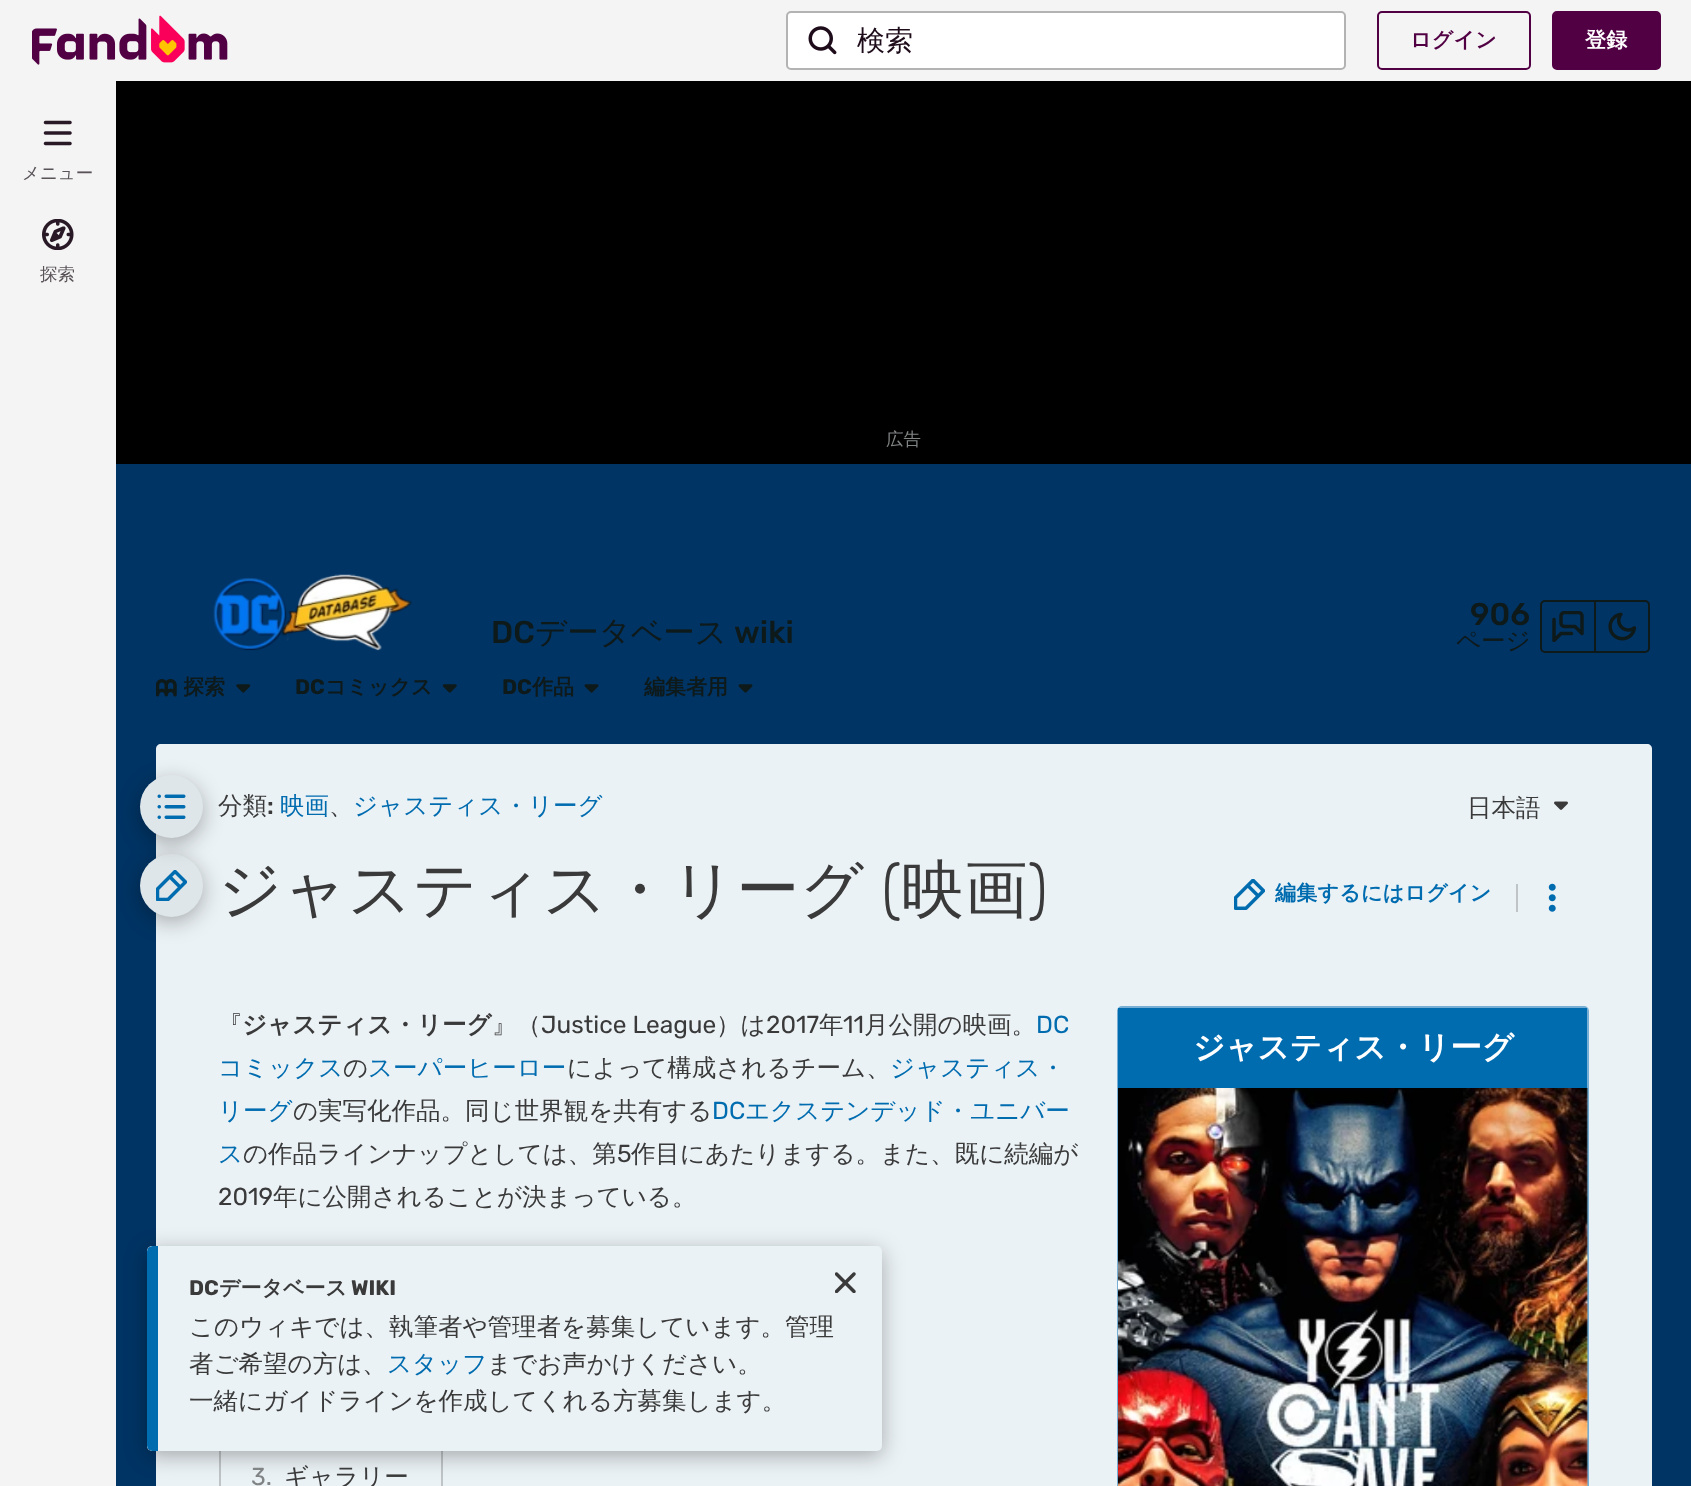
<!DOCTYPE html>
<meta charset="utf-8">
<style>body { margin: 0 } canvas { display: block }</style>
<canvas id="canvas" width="1691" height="1486"></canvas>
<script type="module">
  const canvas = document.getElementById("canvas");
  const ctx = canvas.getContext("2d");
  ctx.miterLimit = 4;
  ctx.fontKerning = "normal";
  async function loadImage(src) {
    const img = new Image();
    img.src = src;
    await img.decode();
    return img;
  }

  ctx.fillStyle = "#003464";
  ctx.fillRect(0, 0, 1691, 1486);
  ctx.fillStyle = "#f4f4f4";
  ctx.fillRect(0, 0, 1691, 81);
  ctx.drawImage(await loadImage("img1.png"), 32, 15, 196, 50);
  ctx.fillStyle = "#ffffff";
  ctx.beginPath();
  ctx.roundRect(787, 12, 558, 57, 4);
  ctx.fill();
  ctx.strokeStyle = "#b3b3b3";
  ctx.lineWidth = 2;
  ctx.stroke();
  ctx.drawImage(await loadImage("img2.png"), 808, 26, 29, 29);
  ctx.font = "500 28px WenQuanYi Zen Hei";
  ctx.fillStyle = "#1e0c1b";
  ctx.fillText("検索", 857, 50);
  ctx.beginPath();
  ctx.roundRect(1378, 12, 152, 57, 4);
  ctx.strokeStyle = "#520044";
  ctx.stroke();
  ctx.letterSpacing = "0.25px";
  ctx.font = "bold 21px WenQuanYi Zen Hei";
  ctx.fillStyle = "#520044";
  ctx.fillText("ログイン", 1410, 47);
  ctx.beginPath();
  ctx.roundRect(1553, 12, 107, 57, 4);
  ctx.fill();
  ctx.stroke();
  ctx.fillStyle = "#ffffff";
  ctx.fillText("登録", 1585, 47);
  ctx.fillStyle = "#ebf2f5";
  ctx.beginPath();
  ctx.moveTo(161, 744);
  ctx.lineTo(1647, 744);
  ctx.bezierCurveTo(1650, 744, 1652, 746, 1652, 749);
  ctx.lineTo(1652, 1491);
  ctx.lineTo(156, 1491);
  ctx.lineTo(156, 749);
  ctx.bezierCurveTo(156, 746, 158, 744, 161, 744);
  ctx.closePath();
  ctx.fill();
  ctx.fillStyle = "rgba(0, 0, 0, 0.3)";
  ctx.filter = "blur(10.5px)";
  ctx.beginPath();
  ctx.roundRect(140, 859, 63, 63, 31.5);
  ctx.fill();
  ctx.filter = "none";
  ctx.fillStyle = "#dfe6e9";
  ctx.beginPath();
  ctx.arc(171.5, 885.5, 31.5, 0, Math.PI * 2);
  ctx.fill();
  ctx.drawImage(await loadImage("img13.png"), 156, 870, 31, 31);
  ctx.fillStyle = "rgba(0, 0, 0, 0.3)";
  ctx.filter = "blur(10.5px)";
  ctx.beginPath();
  ctx.roundRect(140, 781, 63, 63, 31.5);
  ctx.fill();
  ctx.filter = "none";
  ctx.strokeStyle = "#bfc4c6";
  ctx.strokeRect(220, 1263, 222, 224);
  ctx.filter = "blur(10.5px)";
  ctx.beginPath();
  ctx.roundRect(147, 1251, 735, 205, 5);
  ctx.fill();
  ctx.filter = "none";
  ctx.fillStyle = "#f4f4f4";
  ctx.fillRect(0, 81, 116, 1405);
  ctx.drawImage(await loadImage("img3.png"), 43, 120, 29, 26);
  ctx.letterSpacing = "0px";
  ctx.font = "500 17.5px WenQuanYi Zen Hei";
  ctx.fillStyle = "#595358";
  ctx.fillText("メニュー", 22, 179);
  ctx.drawImage(await loadImage("img4.png"), 42, 219, 32, 31);
  ctx.fillText("探索", 40, 280);
  ctx.fillStyle = "#000000";
  ctx.fillRect(116, 81, 1575, 383);
  ctx.fillStyle = "#818485";
  ctx.fillText("広告", 886, 445);
  ctx.drawImage(await loadImage("img5.png"), 213, 574, 199, 77);
  ctx.font = "500 31.5px Rubik";
  ctx.fillStyle = "#0e191a";
  ctx.fillText("DC", 491, 643);
  ctx.font = "500 31.5px WenQuanYi Zen Hei";
  ctx.fillText("データベース", 535, 643);
  ctx.font = "500 31.5px Rubik";
  ctx.fillText("wiki", 734, 643);
  ctx.fillText("906", 1470, 625);
  ctx.font = "500 24.5px WenQuanYi Zen Hei";
  ctx.fillText("ページ", 1456, 649);
  ctx.beginPath();
  ctx.roundRect(1541, 601, 54, 51, [4, 0, 0, 4]);
  ctx.strokeStyle = "#0e191a";
  ctx.stroke();
  ctx.drawImage(await loadImage("img6.png"), 1552, 611, 32, 31);
  ctx.beginPath();
  ctx.roundRect(1595, 601, 54, 51, [0, 4, 4, 0]);
  ctx.stroke();
  ctx.drawImage(await loadImage("img7.png"), 1608, 612, 29, 29);
  ctx.drawImage(await loadImage("img8.png"), 156, 679, 21, 18);
  ctx.save();
  ctx.beginPath();
  ctx.rect(184, 676, 42, 26);
  ctx.clip();
  ctx.font = "bold 21px WenQuanYi Zen Hei";
  ctx.fillText("探索", 183, 694);
  ctx.restore();
  ctx.drawImage(await loadImage("img9.png"), 236, 684, 15, 9);
  ctx.font = "bold 21px Rubik";
  ctx.fillText("DC", 295, 694);
  ctx.font = "bold 21px WenQuanYi Zen Hei";
  ctx.fillText("コミックス", 325, 694);
  ctx.drawImage(await loadImage("img10.png"), 442, 684, 15, 9);
  ctx.font = "bold 21px Rubik";
  ctx.fillText("DC", 502, 694);
  ctx.font = "bold 21px WenQuanYi Zen Hei";
  ctx.fillText("作品", 532, 694);
  ctx.drawImage(await loadImage("img11.png"), 584, 684, 15, 9);
  ctx.fillText("編集者用", 644, 694);
  ctx.drawImage(await loadImage("img11.png"), 738, 684, 15, 9);
  ctx.fillStyle = "#dfe6e9";
  ctx.beginPath();
  ctx.arc(171.5, 806.5, 31.5, 0, Math.PI * 2);
  ctx.fill();
  ctx.drawImage(await loadImage("img12.png"), 157, 794, 29, 25);
  ctx.font = "500 24.5px WenQuanYi Zen Hei";
  ctx.fillStyle = "#3a3a3a";
  ctx.fillText("分類", 218, 814);
  ctx.font = "500 24.5px Rubik";
  ctx.fillText(":", 267, 814);
  ctx.font = "500 24.5px WenQuanYi Zen Hei";
  ctx.fillStyle = "#006cb0";
  ctx.fillText("映画", 280, 814);
  ctx.fillText("ジャスティス・リーグ", 353, 814);
  ctx.fillStyle = "#3a3a3a";
  ctx.fillText("、", 329, 814);
  ctx.fillText("日本語", 1467, 816);
  ctx.drawImage(await loadImage("img14.png"), 1554, 801, 14, 9);
  ctx.letterSpacing = "0.5px";
  ctx.font = "500 63px WenQuanYi Zen Hei";
  ctx.fillText("ジャスティス・リーグ", 218, 911);
  ctx.font = "300 63px Rubik";
  ctx.fillText("(", 881, 911);
  ctx.font = "500 63px WenQuanYi Zen Hei";
  ctx.fillText("映画", 901, 911);
  ctx.font = "300 63px Rubik";
  ctx.fillText(")", 1028, 911);
  ctx.drawImage(await loadImage("img15.png"), 1234, 879, 31, 31);
  ctx.letterSpacing = "0.25px";
  ctx.font = "bold 21px WenQuanYi Zen Hei";
  ctx.fillStyle = "#006cb0";
  ctx.fillText("編集するにはログイン", 1275, 900);
  ctx.fillStyle = "#bfc4c6";
  ctx.fillRect(1516, 884, 2, 28);
  ctx.drawImage(await loadImage("img16.png"), 1548, 883, 8, 29);
  ctx.letterSpacing = "0px";
  ctx.font = "500 24.5px WenQuanYi Zen Hei";
  ctx.fillStyle = "#3a3a3a";
  ctx.fillText("『", 218, 1033);
  ctx.font = "bold 24.5px WenQuanYi Zen Hei";
  ctx.fillText("ジャスティス・リーグ", 242, 1033);
  ctx.font = "500 24.5px WenQuanYi Zen Hei";
  ctx.fillText("』（", 492, 1033);
  ctx.font = "24.5px Rubik";
  ctx.fillText("Justice League", 541, 1033);
  ctx.font = "500 24.5px WenQuanYi Zen Hei";
  ctx.fillText("）は", 716, 1033);
  ctx.font = "24.5px Rubik";
  ctx.fillText("2017", 766, 1033);
  ctx.font = "500 24.5px WenQuanYi Zen Hei";
  ctx.fillText("年", 819, 1033);
  ctx.font = "24.5px Rubik";
  ctx.fillText("11", 843, 1033);
  ctx.font = "500 24.5px WenQuanYi Zen Hei";
  ctx.fillText("月公開の映画。", 864, 1033);
  ctx.font = "24.5px Rubik";
  ctx.fillStyle = "#006cb0";
  ctx.fillText("DC", 1036, 1033);
  ctx.beginPath();
  ctx.roundRect(1118, 1007, 470, 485, 4);
  ctx.strokeStyle = "#76afd3";
  ctx.stroke();
  ctx.fillRect(1118, 1008, 469, 81);
  ctx.font = "bold 31.5px WenQuanYi Zen Hei";
  ctx.fillStyle = "#ffffff";
  ctx.fillText("ジャスティス・リーグ", 1193, 1058);
  ctx.drawImage(await loadImage("img17.png"), 1118, 1088, 470, 398);
  ctx.font = "500 24.5px WenQuanYi Zen Hei";
  ctx.fillStyle = "#006cb0";
  ctx.fillText("コミックス", 218, 1076);
  ctx.fillStyle = "#3a3a3a";
  ctx.fillText("の", 343, 1076);
  ctx.fillStyle = "#006cb0";
  ctx.fillText("スーパーヒーロー", 368, 1076);
  ctx.fillStyle = "#3a3a3a";
  ctx.fillText("によって構成されるチーム、", 567, 1076);
  ctx.fillStyle = "#006cb0";
  ctx.fillText("ジャスティス・", 890, 1076);
  ctx.fillText("リーグ", 218, 1119);
  ctx.fillStyle = "#3a3a3a";
  ctx.fillText("の実写化作品。同じ世界観を共有する", 293, 1119);
  ctx.font = "24.5px Rubik";
  ctx.fillStyle = "#006cb0";
  ctx.fillText("DC", 712, 1119);
  ctx.font = "500 24.5px WenQuanYi Zen Hei";
  ctx.fillText("エクステンデッド・ユニバー", 745, 1119);
  ctx.fillText("ス", 218, 1162);
  ctx.fillStyle = "#3a3a3a";
  ctx.fillText("の作品ラインナップとしては、第", 243, 1162);
  ctx.font = "24.5px Rubik";
  ctx.fillText("5", 617, 1162);
  ctx.font = "500 24.5px WenQuanYi Zen Hei";
  ctx.fillText("作目にあたりまする。また、既に続編が", 631, 1162);
  ctx.font = "24.5px Rubik";
  ctx.fillText("2019", 218, 1205);
  ctx.font = "500 24.5px WenQuanYi Zen Hei";
  ctx.fillText("年に公開されることが決まっている。", 273, 1205);
  ctx.font = "24.5px Rubik";
  ctx.fillStyle = "#818485";
  ctx.fillText("3.", 251, 1485);
  ctx.font = "500 24.5px WenQuanYi Zen Hei";
  ctx.fillStyle = "#3a3a3a";
  ctx.fillText("ギャラリー", 284, 1485);
  ctx.fillStyle = "#ebf2f5";
  ctx.beginPath();
  ctx.roundRect(147, 1246, 735, 205, 5);
  ctx.fill();
  ctx.save();
  ctx.beginPath();
  ctx.roundRect(147, 1246, 735, 205, 5);
  ctx.clip();
  ctx.fillStyle = "#006cb0";
  ctx.beginPath();
  ctx.roundRect(147, 1246, 11, 205, [5.5, 0, 0, 5.5]);
  ctx.fill();
  ctx.restore();
  ctx.font = "bold 21px Rubik";
  ctx.fillStyle = "#3a3a3a";
  ctx.fillText("DC", 189, 1295);
  ctx.font = "bold 21px WenQuanYi Zen Hei";
  ctx.fillText("データベース", 219, 1295);
  ctx.font = "bold 21px Rubik";
  ctx.fillText("WIKI", 351, 1295);
  ctx.drawImage(await loadImage("img18.png"), 835, 1272, 21, 21);
  ctx.font = "500 24.5px WenQuanYi Zen Hei";
  ctx.fillText("このウィキでは、執筆者や管理者を募集しています。管理", 189, 1335);
  ctx.fillText("者ご希望の方は、", 189, 1372);
  ctx.fillStyle = "#006cb0";
  ctx.fillText("スタッフ", 387, 1372);
  ctx.fillStyle = "#3a3a3a";
  ctx.fillText("までお声かけください。", 487, 1372);
  ctx.fillText("一緒にガイドラインを作成してくれる方募集します。", 189, 1409);
</script>
